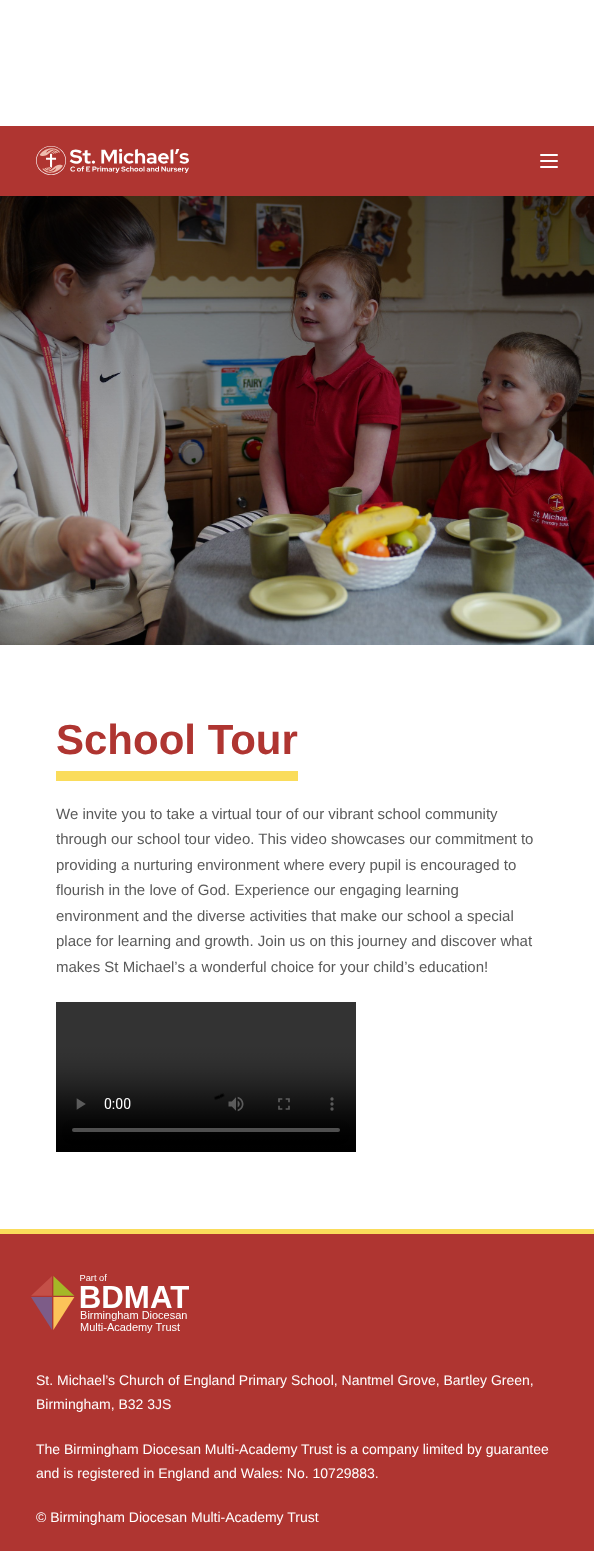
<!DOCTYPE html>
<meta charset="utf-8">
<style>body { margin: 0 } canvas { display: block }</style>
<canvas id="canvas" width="594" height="1551"></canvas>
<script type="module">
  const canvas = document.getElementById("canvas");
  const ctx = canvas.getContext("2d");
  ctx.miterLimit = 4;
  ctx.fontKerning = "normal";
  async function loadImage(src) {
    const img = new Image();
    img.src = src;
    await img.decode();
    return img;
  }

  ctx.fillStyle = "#ffffff";
  ctx.fillRect(0, 0, 594, 1551);
  ctx.fillStyle = "#af3531";
  ctx.fillRect(0, 126, 594, 70);
  ctx.drawImage(await loadImage("img1.png"), 36, 146, 153, 29);
  ctx.fillStyle = "#ffffff";
  ctx.beginPath();
  ctx.roundRect(540, 154, 18, 2, 1);
  ctx.fill();
  ctx.beginPath();
  ctx.roundRect(540, 160, 18, 2, 1);
  ctx.fill();
  ctx.beginPath();
  ctx.roundRect(540, 166, 18, 2, 1);
  ctx.fill();
  ctx.drawImage(await loadImage("img2.png"), 0, 196, 594, 449);
  ctx.fillStyle = "#fadc5b";
  ctx.fillRect(56, 771, 242, 10);
  ctx.font = "bold 42px Liberation Sans";
  ctx.fillStyle = "#af3531";
  ctx.fillText("School Tour", 56, 754);
  ctx.font = "15px Liberation Sans";
  ctx.fillStyle = "#5a5a5a";
  ctx.fillText("We invite you to take a virtual tour of our vibrant school community", 56, 819);
  ctx.fillText("through our school tour video. This video showcases our commitment to", 56, 844);
  ctx.fillText("providing a nurturing environment where every pupil is encouraged to", 56, 870);
  ctx.fillText("flourish in the love of God. Experience our engaging learning", 56, 895);
  ctx.fillText("environment and the diverse activities that make our school a special", 56, 921);
  ctx.fillText("place for learning and growth. Join us on this journey and discover what", 56, 946);
  ctx.fillText("makes St Michael’s a wonderful choice for your child’s education!", 56, 972);
  ctx.drawImage(await loadImage("img3.png"), 56, 1002, 300, 150);
  ctx.fillStyle = "#af3531";
  ctx.fillRect(0, 1234, 594, 317);
  ctx.fillStyle = "#fadc5b";
  ctx.fillRect(0, 1229, 594, 5);
  ctx.drawImage(await loadImage("img4.png"), 31, 1274, 158, 59);
  ctx.font = "14px Liberation Sans";
  ctx.fillStyle = "#ffffff";
  ctx.fillText("St. Michael’s Church of England Primary School, Nantmel Grove, Bartley Green,", 36, 1385);
  ctx.fillText("Birmingham, B32 3JS", 36, 1409);
  ctx.fillText("The Birmingham Diocesan Multi-Academy Trust is a company limited by guarantee", 36, 1454);
  ctx.fillText("and is registered in England and Wales: No. 10729883.", 36, 1478);
  ctx.fillText("© Birmingham Diocesan Multi-Academy Trust", 36, 1522);
</script>
